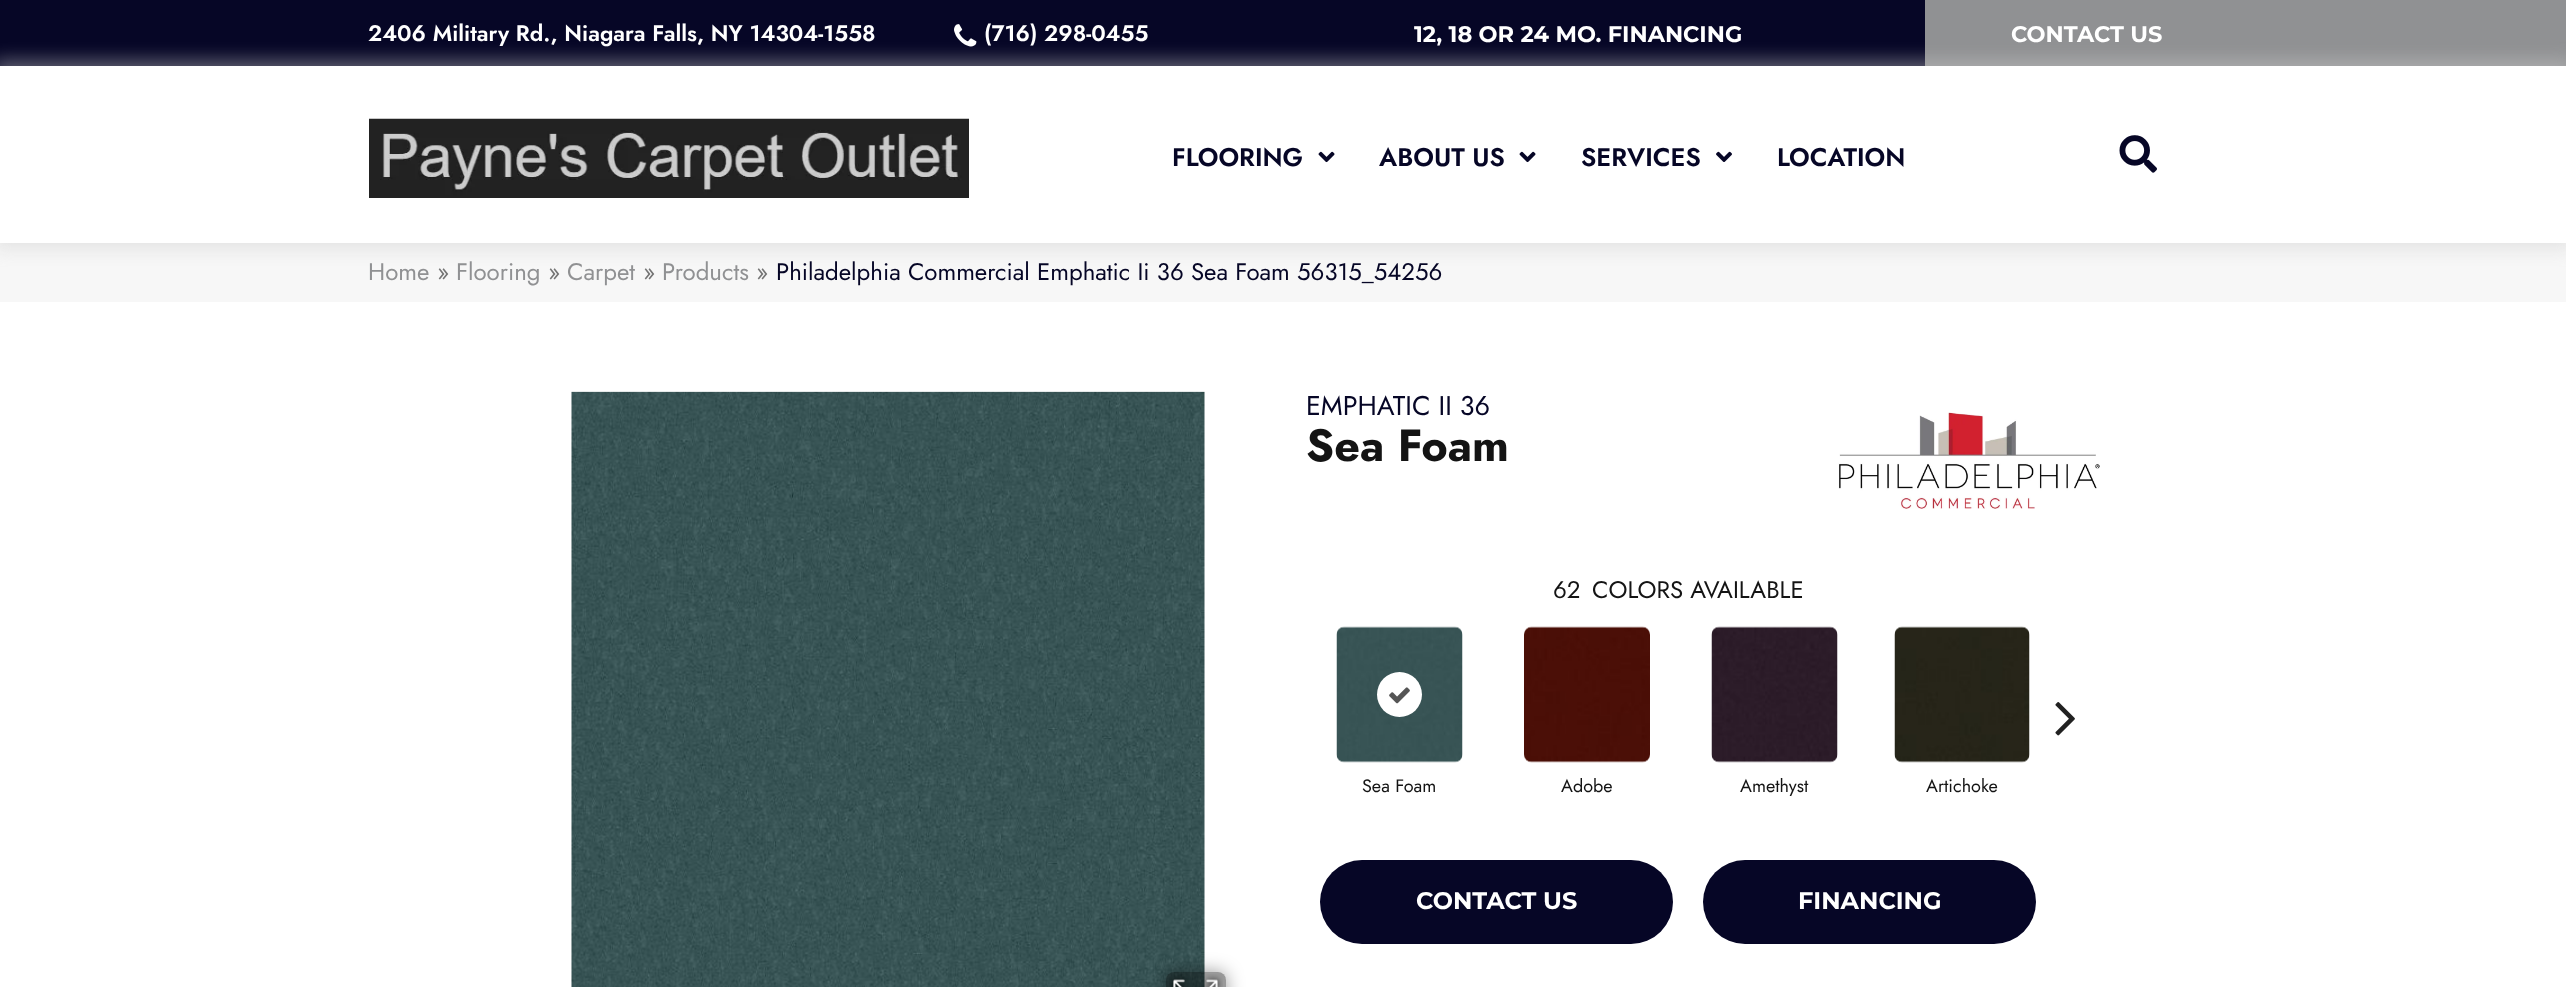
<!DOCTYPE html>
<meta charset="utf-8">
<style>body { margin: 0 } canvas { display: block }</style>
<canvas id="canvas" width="2566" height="987"></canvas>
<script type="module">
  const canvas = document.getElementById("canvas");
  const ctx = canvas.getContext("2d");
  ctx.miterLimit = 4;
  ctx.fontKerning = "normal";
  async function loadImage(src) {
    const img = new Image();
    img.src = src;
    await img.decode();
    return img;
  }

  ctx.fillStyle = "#ffffff";
  ctx.fillRect(0, 0, 2566, 987);
  ctx.fillStyle = "#060626";
  ctx.fillRect(0, 0, 1925, 66);
  ctx.fillStyle = "#909193";
  ctx.fillRect(1925, 0, 641, 66);
  ctx.font = "600 22.5px Jost";
  ctx.fillStyle = "#ffffff";
  ctx.fillText("2406 Military Rd., Niagara Falls, NY 14304-1558", 368, 41);
  ctx.drawImage(await loadImage("img1.png"), 954, 24, 23, 23);
  ctx.fillText("(716) 298-0455", 984, 41);
  ctx.font = "100 22.5px Montserrat";
  ctx.fillText("12, 18 OR 24 MO. FINANCING", 1414, 42);
  ctx.fillText("CONTACT US", 2011, 42);
  ctx.fillStyle = "#f7f7f7";
  ctx.fillRect(0, 243, 2566, 59);
  ctx.fillStyle = "rgba(204, 204, 204, 0.45)";
  ctx.filter = "blur(9px)";
  ctx.beginPath();
  ctx.rect(-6, 60, 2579, 189);
  ctx.fill();
  ctx.filter = "none";
  ctx.fillStyle = "#ffffff";
  ctx.fillRect(0, 66, 2566, 177);
  ctx.drawImage(await loadImage("img2.png"), 369, 118, 600, 80);
  ctx.font = "600 25.5px Jost";
  ctx.fillStyle = "#060626";
  ctx.fillText("FLOORING", 1172, 166);
  ctx.drawImage(await loadImage("img3.png"), 1318, 151, 17, 12);
  ctx.fillText("ABOUT US", 1379, 166);
  ctx.drawImage(await loadImage("img3.png"), 1519, 151, 17, 12);
  ctx.fillText("SERVICES", 1581, 166);
  ctx.drawImage(await loadImage("img4.png"), 1716, 151, 16, 11);
  ctx.fillText("LOCATION", 1777, 166);
  ctx.drawImage(await loadImage("img5.png"), 2119, 135, 38, 38);
  ctx.font = "24px Jost";
  ctx.fillStyle = "#909193";
  ctx.fillText("Home", 368, 280);
  ctx.fillStyle = "#757575";
  ctx.fillText("»", 437, 280);
  ctx.fillStyle = "#909193";
  ctx.fillText("Flooring", 456, 280);
  ctx.fillStyle = "#757575";
  ctx.fillText("»", 548, 280);
  ctx.fillStyle = "#909193";
  ctx.fillText("Carpet", 567, 280);
  ctx.fillStyle = "#757575";
  ctx.fillText("»", 643, 280);
  ctx.fillStyle = "#909193";
  ctx.fillText("Products", 662, 280);
  ctx.fillStyle = "#757575";
  ctx.fillText("»", 756, 280);
  ctx.fillStyle = "#060626";
  ctx.fillText("Philadelphia Commercial Emphatic Ii 36 Sea Foam 56315_54256", 776, 280);
  ctx.drawImage(await loadImage("img6.png"), 571, 391, 634, 596);
  ctx.save();
  ctx.beginPath();
  ctx.moveTo(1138, 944);
  ctx.lineTo(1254, 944);
  ctx.lineTo(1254, 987);
  ctx.lineTo(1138, 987);
  ctx.closePath();
  ctx.moveTo(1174, 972);
  ctx.lineTo(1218, 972);
  ctx.bezierCurveTo(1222.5, 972, 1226, 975.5, 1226, 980);
  ctx.lineTo(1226, 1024);
  ctx.bezierCurveTo(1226, 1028.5, 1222.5, 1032, 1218, 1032);
  ctx.lineTo(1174, 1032);
  ctx.bezierCurveTo(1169.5, 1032, 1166, 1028.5, 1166, 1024);
  ctx.lineTo(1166, 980);
  ctx.bezierCurveTo(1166, 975.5, 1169.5, 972, 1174, 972);
  ctx.closePath();
  ctx.clip("evenodd");
  ctx.fillStyle = "rgba(0, 0, 0, 0.41)";
  ctx.filter = "blur(9px)";
  ctx.beginPath();
  ctx.roundRect(1166, 972, 60, 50, 8);
  ctx.fill();
  ctx.filter = "none";
  ctx.restore();
  ctx.fillStyle = "rgba(0, 0, 0, 0.4)";
  ctx.beginPath();
  ctx.roundRect(1166, 972, 60, 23, 8);
  ctx.fill();
  ctx.drawImage(await loadImage("img7.png"), 1169, 974, 54, 13);
  ctx.font = "27px Jost";
  ctx.fillStyle = "#060626";
  ctx.fillText("EMPHATIC II 36", 1306, 415);
  ctx.font = "bold 45px Jost";
  ctx.fillStyle = "#141414";
  ctx.fillText("Sea Foam", 1306, 461);
  ctx.drawImage(await loadImage("img8.png"), 1838, 412, 262, 97);
  ctx.font = "24px Jost";
  ctx.fillText("62", 1553, 598);
  ctx.fillText("COLORS AVAILABLE", 1592, 598);
  ctx.drawImage(await loadImage("img9.png"), 2055, 702, 20, 34);
  ctx.drawImage(await loadImage("img10.png"), 1336, 626, 127, 137);
  ctx.fillStyle = "#ffffff";
  ctx.beginPath();
  ctx.arc(1399.5, 694.5, 22.5, 0, Math.PI * 2);
  ctx.fill();
  ctx.drawImage(await loadImage("img11.png"), 1389, 687, 21, 17);
  ctx.font = "18px Jost";
  ctx.fillStyle = "#141414";
  ctx.fillText("Sea Foam", 1362, 792);
  ctx.drawImage(await loadImage("img12.png"), 1524, 626, 126, 137);
  ctx.fillText("Adobe", 1561, 792);
  ctx.drawImage(await loadImage("img13.png"), 1711, 626, 127, 137);
  ctx.fillText("Amethyst", 1740, 792);
  ctx.drawImage(await loadImage("img14.png"), 1894, 626, 136, 137);
  ctx.fillText("Artichoke", 1926, 792);
  ctx.fillStyle = "#060626";
  ctx.beginPath();
  ctx.roundRect(1320, 860, 353, 84, 42);
  ctx.fill();
  ctx.font = "100 24px Montserrat";
  ctx.fillStyle = "#ffffff";
  ctx.fillText("CONTACT US", 1416, 909);
  ctx.fillStyle = "#060626";
  ctx.beginPath();
  ctx.roundRect(1703, 860, 333, 84, 42);
  ctx.fill();
  ctx.fillStyle = "#ffffff";
  ctx.fillText("FINANCING", 1798, 909);
</script>
